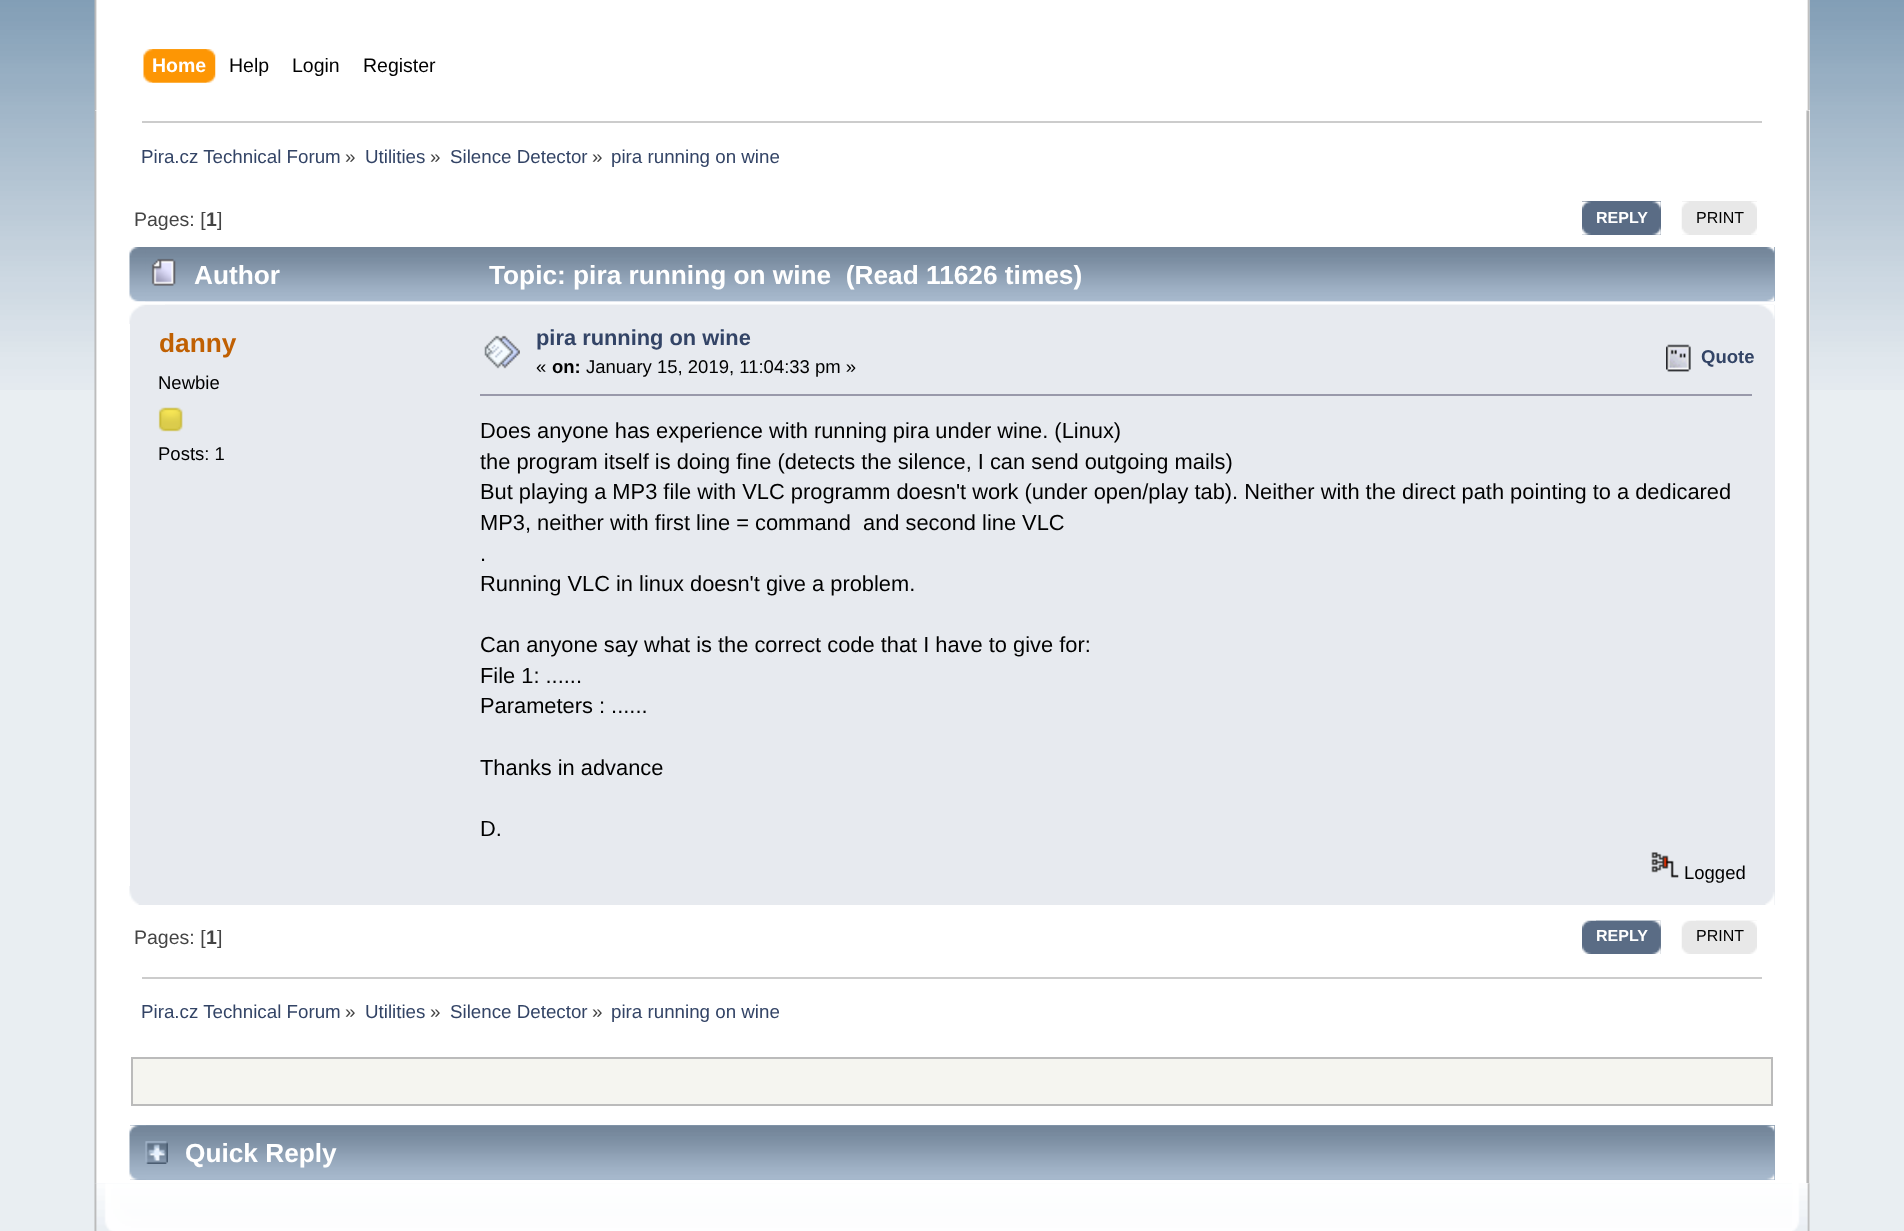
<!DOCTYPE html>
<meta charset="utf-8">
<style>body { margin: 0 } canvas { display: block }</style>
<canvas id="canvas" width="1904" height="1231"></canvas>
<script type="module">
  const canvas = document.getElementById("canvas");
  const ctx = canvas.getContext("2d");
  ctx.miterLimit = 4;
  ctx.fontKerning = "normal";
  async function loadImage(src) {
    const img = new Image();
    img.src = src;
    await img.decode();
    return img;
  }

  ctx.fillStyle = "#e9eef2";
  ctx.fillRect(0, 0, 1904, 1231);
  ctx.drawImage(await loadImage("img1.png"), 0, 0, 1904, 390);
  ctx.drawImage(await loadImage("img2.png"), 94, 0, 1716, 111);
  ctx.drawImage(await loadImage("img3.png"), 129, 0, 1681, 110);
  ctx.drawImage(await loadImage("img4.png"), 152, 49, 64, 34);
  ctx.drawImage(await loadImage("img5.png"), 143, 49, 64, 34);
  ctx.font = "bold 19.5px Liberation Sans";
  ctx.fillStyle = "#ffffff";
  ctx.fillText("Home", 152, 72);
  ctx.font = "19.5px Liberation Sans";
  ctx.fillStyle = "#000000";
  ctx.fillText("Help", 229, 72);
  ctx.fillText("Login", 292, 72);
  ctx.fillText("Register", 363, 72);
  ctx.fillStyle = "#ffffff";
  ctx.fillRect(95, 110, 1715, 1073);
  ctx.drawImage(await loadImage("img6.png"), 94, 110, 1715, 1074);
  ctx.drawImage(await loadImage("img7.png"), 130, 110, 1680, 1074);
  ctx.fillStyle = "#cccccc";
  ctx.fillRect(142, 121, 1620, 2);
  ctx.font = "18.75px Liberation Sans";
  ctx.fillStyle = "#334466";
  ctx.fillText("Pira.cz Technical Forum", 141, 163);
  ctx.fillStyle = "#444444";
  ctx.fillText("»", 345, 163);
  ctx.fillStyle = "#334466";
  ctx.fillText("Utilities", 365, 163);
  ctx.fillStyle = "#444444";
  ctx.fillText("»", 430, 163);
  ctx.fillStyle = "#334466";
  ctx.fillText("Silence Detector", 450, 163);
  ctx.fillStyle = "#444444";
  ctx.fillText("»", 592, 163);
  ctx.fillStyle = "#334466";
  ctx.fillText("pira running on wine", 611, 163);
  ctx.font = "19.5px Liberation Sans";
  ctx.fillStyle = "#444444";
  ctx.fillText("Pages: [", 134, 226);
  ctx.font = "bold 19.5px Liberation Sans";
  ctx.fillText("1", 206, 226);
  ctx.font = "19.5px Liberation Sans";
  ctx.fillText("]", 217, 226);
  ctx.fillStyle = "#5a6c85";
  ctx.fillRect(1582, 201, 79, 34);
  ctx.drawImage(await loadImage("img8.png"), 1582, 201, 9, 34);
  ctx.drawImage(await loadImage("img9.png"), 1652, 201, 9, 34);
  ctx.font = "bold 16px Liberation Sans";
  ctx.fillStyle = "#ffffff";
  ctx.fillText("REPLY", 1596, 223);
  ctx.fillStyle = "#e8e8e8";
  ctx.fillRect(1682, 201, 75, 34);
  ctx.drawImage(await loadImage("img10.png"), 1681, 201, 8, 34);
  ctx.drawImage(await loadImage("img11.png"), 1751, 201, 6, 34);
  ctx.font = "16px Liberation Sans";
  ctx.fillStyle = "#000000";
  ctx.fillText("PRINT", 1696, 223);
  ctx.fillStyle = "#99abbf";
  ctx.fillRect(1774, 247, 1, 54);
  ctx.drawImage(await loadImage("img12.png"), 129, 247, 1646, 55);
  ctx.drawImage(await loadImage("img13.png"), 145, 247, 1630, 55);
  ctx.drawImage(await loadImage("img14.png"), 151, 258, 25, 28);
  ctx.font = "bold 26.25px Liberation Sans";
  ctx.fillStyle = "#ffffff";
  ctx.fillText("Author", 194, 284);
  ctx.fillText("Topic: pira running on wine  (Read 11626 times)", 489, 284);
  ctx.fillStyle = "#e7eaef";
  ctx.fillRect(130, 305, 1645, 600);
  ctx.drawImage(await loadImage("img15.png"), 129, 304, 1645, 20);
  ctx.drawImage(await loadImage("img16.png"), 165, 304, 1610, 15);
  ctx.fillStyle = "#c06002";
  ctx.fillText("danny", 159, 352);
  ctx.font = "18.5px Liberation Sans";
  ctx.fillStyle = "#000000";
  ctx.fillText("Newbie", 158, 389);
  ctx.drawImage(await loadImage("img17.png"), 158, 407, 25, 25);
  ctx.fillText("Posts: 1", 158, 460);
  ctx.drawImage(await loadImage("img18.png"), 484, 335, 36, 34);
  ctx.font = "bold 21.85px Liberation Sans";
  ctx.fillStyle = "#334466";
  ctx.fillText("pira running on wine", 536, 345);
  ctx.font = "18.5px Liberation Sans";
  ctx.fillStyle = "#000000";
  ctx.fillText("«", 536, 373);
  ctx.font = "bold 18.5px Liberation Sans";
  ctx.fillText("on:", 552, 373);
  ctx.font = "18.5px Liberation Sans";
  ctx.fillText("January 15, 2019, 11:04:33 pm »", 586, 373);
  ctx.drawImage(await loadImage("img19.png"), 1666, 344, 25, 28);
  ctx.font = "bold 18.5px Liberation Sans";
  ctx.fillStyle = "#334466";
  ctx.fillText("Quote", 1701, 363);
  ctx.fillStyle = "#9999aa";
  ctx.fillRect(480, 394, 1272, 2);
  ctx.font = "21.85px Liberation Sans";
  ctx.fillStyle = "#000000";
  ctx.fillText("Does anyone has experience with running pira under wine. (Linux)", 480, 438);
  ctx.fillText("the program itself is doing fine (detects the silence, I can send outgoing mails)", 480, 469);
  ctx.fillText("But playing a MP3 file with VLC programm doesn't work (under open/play tab). Neither with the direct path pointing to a dedicared", 480, 499);
  ctx.fillText("MP3, neither with first line = command  and second line VLC", 480, 530);
  ctx.fillText(".", 480, 561);
  ctx.fillText("Running VLC in linux doesn't give a problem.", 480, 591);
  ctx.fillText("Can anyone say what is the correct code that I have to give for:", 480, 652);
  ctx.fillText("File 1: ......", 480, 683);
  ctx.fillText("Parameters : ......", 480, 713);
  ctx.fillText("Thanks in advance", 480, 775);
  ctx.fillText("D.", 480, 836);
  ctx.drawImage(await loadImage("img20.png"), 1651, 852, 28, 26);
  ctx.font = "18.5px Liberation Sans";
  ctx.fillText("Logged", 1684, 879);
  ctx.drawImage(await loadImage("img21.png"), 129, 886, 10, 19);
  ctx.drawImage(await loadImage("img22.png"), 1765, 892, 10, 13);
  ctx.font = "19.5px Liberation Sans";
  ctx.fillStyle = "#444444";
  ctx.fillText("Pages: [", 134, 944);
  ctx.font = "bold 19.5px Liberation Sans";
  ctx.fillText("1", 206, 944);
  ctx.font = "19.5px Liberation Sans";
  ctx.fillText("]", 217, 944);
  ctx.drawImage(await loadImage("img23.png"), 1582, 920, 79, 34);
  ctx.drawImage(await loadImage("img24.png"), 1596, 920, 65, 34);
  ctx.font = "bold 16px Liberation Sans";
  ctx.fillStyle = "#ffffff";
  ctx.fillText("REPLY", 1596, 941);
  ctx.drawImage(await loadImage("img25.png"), 1681, 920, 76, 34);
  ctx.drawImage(await loadImage("img26.png"), 1696, 920, 61, 34);
  ctx.font = "16px Liberation Sans";
  ctx.fillStyle = "#000000";
  ctx.fillText("PRINT", 1696, 941);
  ctx.fillStyle = "#cccccc";
  ctx.fillRect(142, 977, 1620, 2);
  ctx.font = "18.75px Liberation Sans";
  ctx.fillStyle = "#334466";
  ctx.fillText("Pira.cz Technical Forum", 141, 1018);
  ctx.fillStyle = "#444444";
  ctx.fillText("»", 345, 1018);
  ctx.fillStyle = "#334466";
  ctx.fillText("Utilities", 365, 1018);
  ctx.fillStyle = "#444444";
  ctx.fillText("»", 430, 1018);
  ctx.fillStyle = "#334466";
  ctx.fillText("Silence Detector", 450, 1018);
  ctx.fillStyle = "#444444";
  ctx.fillText("»", 592, 1018);
  ctx.fillStyle = "#334466";
  ctx.fillText("pira running on wine", 611, 1018);
  ctx.fillStyle = "#f5f5f0";
  ctx.beginPath();
  ctx.rect(132, 1058, 1640, 47);
  ctx.fill();
  ctx.strokeStyle = "#bbbbbb";
  ctx.lineWidth = 2;
  ctx.stroke();
  ctx.fillStyle = "#99abbf";
  ctx.fillRect(130, 1125, 1645, 55);
  ctx.drawImage(await loadImage("img27.png"), 129, 1125, 1646, 55);
  ctx.drawImage(await loadImage("img28.png"), 146, 1125, 1629, 55);
  ctx.drawImage(await loadImage("img29.png"), 145, 1141, 23, 23);
  ctx.font = "bold 26.25px Liberation Sans";
  ctx.fillStyle = "#ffffff";
  ctx.fillText("Quick Reply", 185, 1162);
  ctx.drawImage(await loadImage("img30.png"), 94, 1183, 1716, 48);
  ctx.drawImage(await loadImage("img31.png"), 1792, 1183, 18, 48);
</script>
